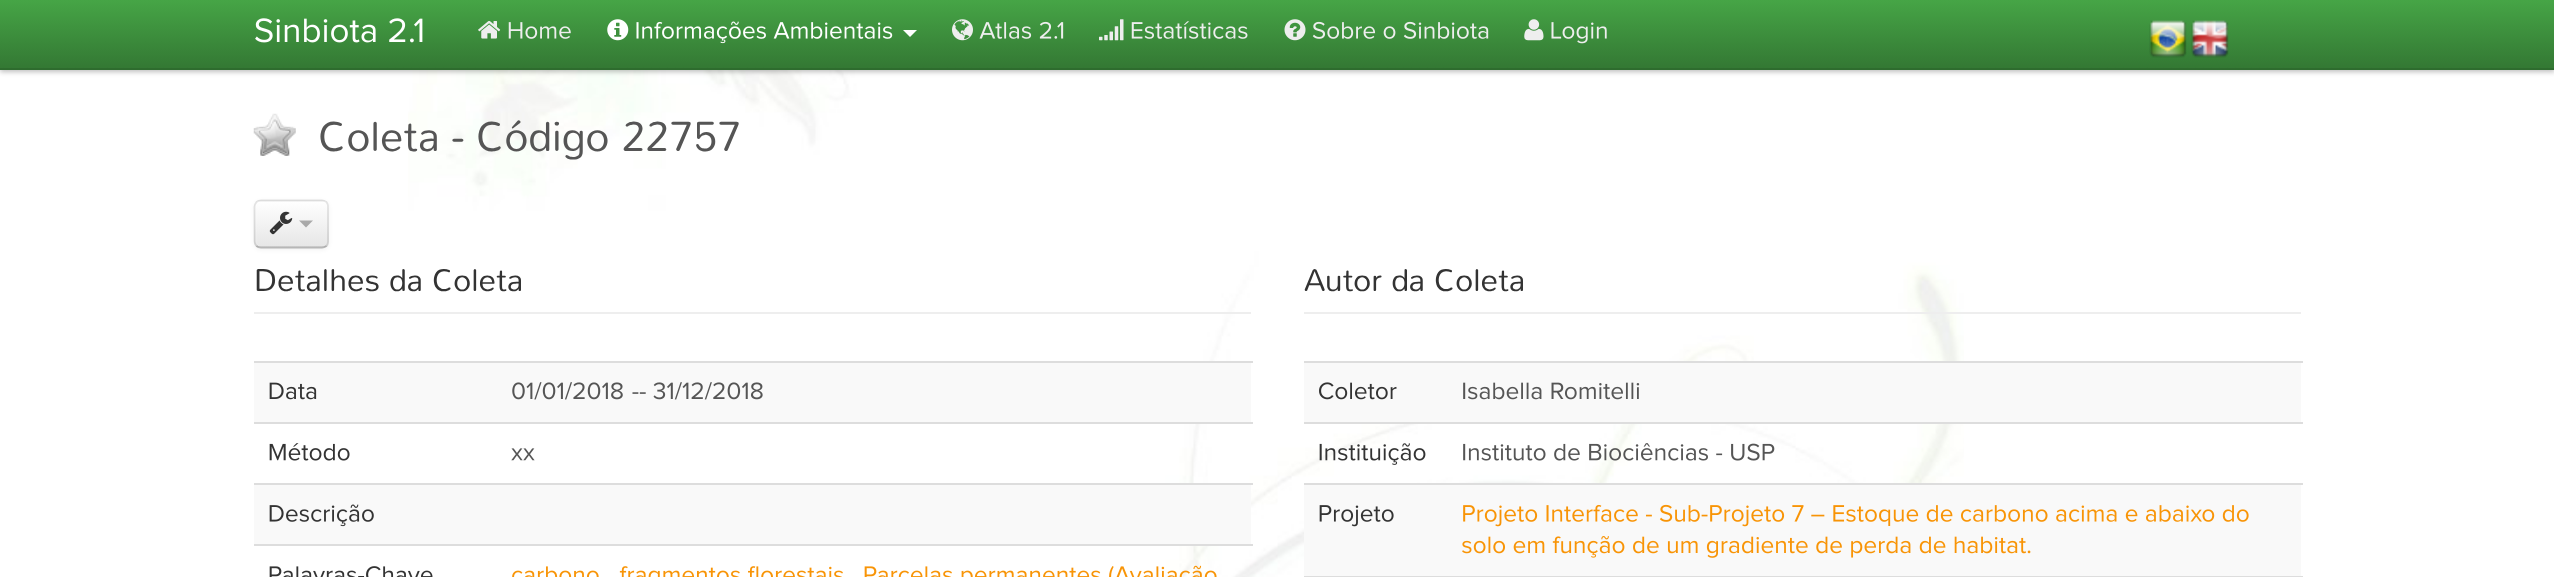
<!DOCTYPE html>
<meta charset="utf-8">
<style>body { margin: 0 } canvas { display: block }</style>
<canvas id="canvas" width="2554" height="577"></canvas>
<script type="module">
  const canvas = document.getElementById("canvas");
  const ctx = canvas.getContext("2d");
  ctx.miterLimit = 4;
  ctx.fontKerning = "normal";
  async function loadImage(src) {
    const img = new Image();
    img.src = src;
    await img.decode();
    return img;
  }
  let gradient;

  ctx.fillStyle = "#ffffff";
  ctx.fillRect(0, 0, 2554, 577);
  ctx.drawImage(await loadImage("img1.png"), 408, 70, 1556, 507);
  ctx.fillStyle = "rgba(0, 0, 0, 0.25)";
  ctx.filter = "blur(2.5px)";
  ctx.beginPath();
  ctx.rect(0, 2, 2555, 70);
  ctx.fill();
  ctx.filter = "none";
  gradient = ctx.createLinearGradient(1278, 0, 1278, 70);
  gradient.addColorStop(0, "#46a546");
  gradient.addColorStop(1, "#337733");
  ctx.fillStyle = gradient;
  ctx.fillRect(0, 0, 2554, 68);
  ctx.fillStyle = "#2e6c2e";
  ctx.fillRect(0, 68, 2554, 2);
  ctx.drawImage(await loadImage("img2.png"), 255, 18, 168, 25);
  ctx.drawImage(await loadImage("img3.png"), 478, 21, 23, 18);
  ctx.drawImage(await loadImage("img4.png"), 508, 22, 63, 17);
  ctx.drawImage(await loadImage("img5.png"), 607, 19, 22, 22);
  ctx.drawImage(await loadImage("img6.png"), 636, 21, 257, 23);
  ctx.fillStyle = "#ffffff";
  ctx.beginPath();
  ctx.moveTo(903, 30);
  ctx.lineTo(917, 30);
  ctx.lineTo(910, 37);
  ctx.closePath();
  ctx.fill();
  ctx.drawImage(await loadImage("img7.png"), 952, 19, 21, 22);
  ctx.drawImage(await loadImage("img8.png"), 979, 21, 85, 18);
  ctx.drawImage(await loadImage("img9.png"), 1099, 19, 25, 22);
  ctx.drawImage(await loadImage("img10.png"), 1131, 21, 117, 18);
  ctx.drawImage(await loadImage("img11.png"), 1284, 19, 22, 22);
  ctx.drawImage(await loadImage("img12.png"), 1312, 21, 177, 18);
  ctx.drawImage(await loadImage("img13.png"), 1524, 19, 20, 22);
  ctx.drawImage(await loadImage("img14.png"), 1551, 22, 56, 22);
  ctx.drawImage(await loadImage("img15.png"), 2149, 20, 38, 38);
  ctx.drawImage(await loadImage("img16.png"), 2191, 20, 38, 38);
  ctx.drawImage(await loadImage("img17.png"), 253, 113, 43, 43);
  ctx.font = "300 42px Nunito";
  ctx.fillStyle = "#555555";
  ctx.fillText("Coleta - Código 22757", 318, 151);
  ctx.fillStyle = "rgba(0, 0, 0, 0.05)";
  ctx.filter = "blur(2px)";
  ctx.beginPath();
  ctx.roundRect(254, 201, 75, 49, 7);
  ctx.fill();
  ctx.filter = "none";
  ctx.fillStyle = "#f5f5f5";
  ctx.beginPath();
  ctx.roundRect(254, 200, 75, 49, 7);
  ctx.fill();
  ctx.save();
  ctx.beginPath();
  ctx.roundRect(254, 200, 75, 49, 7);
  ctx.clip();
  gradient = ctx.createLinearGradient(291, 201, 291, 247);
  gradient.addColorStop(0, "#ffffff");
  gradient.addColorStop(1, "#e6e6e6");
  ctx.fillStyle = gradient;
  ctx.fillRect(254, 201, 75, 46);
  ctx.restore();
  ctx.fillStyle = "rgba(255, 255, 255, 0.12)";
  ctx.beginPath();
  ctx.moveTo(261, 201);
  ctx.bezierCurveTo(258, 201, 256, 203, 256, 206);
  ctx.lineTo(256, 242);
  ctx.bezierCurveTo(256, 245, 258, 247, 261, 247);
  ctx.lineTo(262, 247);
  ctx.bezierCurveTo(260, 247, 257, 244, 257, 242);
  ctx.lineTo(257, 206);
  ctx.bezierCurveTo(257, 204, 260, 201, 262, 201);
  ctx.closePath();
  ctx.fill();
  ctx.beginPath();
  ctx.moveTo(326.5, 246);
  ctx.bezierCurveTo(325, 247, 323.5, 247.5, 322, 247.5);
  ctx.lineTo(261, 247.5);
  ctx.bezierCurveTo(259, 247.5, 257.5, 247, 256.5, 246);
  ctx.strokeStyle = "rgba(0, 0, 0, 0.25)";
  ctx.lineWidth = 1.8;
  ctx.stroke();
  ctx.beginPath();
  ctx.moveTo(256.5, 246);
  ctx.bezierCurveTo(255.5, 244.5, 254.5, 243, 254.5, 241.5);
  ctx.lineTo(254.5, 206.5);
  ctx.bezierCurveTo(254.5, 205, 255.5, 203.5, 256.5, 202);
  ctx.bezierCurveTo(257.5, 201, 259, 200.5, 261, 200.5);
  ctx.lineTo(322, 200.5);
  ctx.bezierCurveTo(323.5, 200.5, 325, 201, 326.5, 202);
  ctx.bezierCurveTo(327.5, 203.5, 328, 205, 328, 206.5);
  ctx.lineTo(328, 241.5);
  ctx.bezierCurveTo(328, 243, 327.5, 244.5, 326.5, 246);
  ctx.strokeStyle = "rgba(0, 0, 0, 0.1)";
  ctx.stroke();
  ctx.drawImage(await loadImage("img18.png"), 269, 211, 24, 24);
  ctx.fillStyle = "rgba(0, 0, 0, 0.3)";
  ctx.beginPath();
  ctx.moveTo(299, 220.5);
  ctx.lineTo(313, 220.5);
  ctx.lineTo(306, 227.5);
  ctx.closePath();
  ctx.fill();
  ctx.fillStyle = "#eeeeee";
  ctx.fillRect(254, 312, 997, 2);
  ctx.font = "300 31.5px Nunito";
  ctx.fillStyle = "#333333";
  ctx.fillText("Detalhes da Coleta", 254, 291);
  ctx.fillStyle = "#dddddd";
  ctx.fillRect(254, 361, 999, 2);
  ctx.fillStyle = "#f9f9f9";
  ctx.fillRect(254, 363, 997, 59);
  ctx.drawImage(await loadImage("img19.png"), 512, 382, 111, 18);
  ctx.drawImage(await loadImage("img20.png"), 632, 382, 131, 18);
  ctx.drawImage(await loadImage("img21.png"), 269, 382, 48, 18);
  ctx.fillStyle = "#dddddd";
  ctx.fillRect(254, 422, 999, 2);
  ctx.drawImage(await loadImage("img22.png"), 511, 448, 24, 13);
  ctx.drawImage(await loadImage("img23.png"), 269, 443, 81, 18);
  ctx.fillRect(254, 483, 999, 2);
  ctx.fillStyle = "#f9f9f9";
  ctx.fillRect(254, 485, 997, 59);
  ctx.drawImage(await loadImage("img24.png"), 269, 504, 105, 23);
  ctx.fillStyle = "#dddddd";
  ctx.fillRect(254, 544, 999, 2);
  ctx.drawImage(await loadImage("img25.png"), 512, 566, 87, 11);
  ctx.drawImage(await loadImage("img26.png"), 619, 566, 224, 11);
  ctx.drawImage(await loadImage("img27.png"), 864, 565, 353, 12);
  ctx.drawImage(await loadImage("img28.png"), 269, 566, 164, 11);
  ctx.fillStyle = "#eeeeee";
  ctx.fillRect(1304, 312, 997, 2);
  ctx.fillStyle = "#333333";
  ctx.fillText("Autor da Coleta", 1304, 291);
  ctx.fillStyle = "#dddddd";
  ctx.fillRect(1304, 361, 999, 2);
  ctx.fillStyle = "#f9f9f9";
  ctx.fillRect(1304, 363, 997, 59);
  ctx.drawImage(await loadImage("img29.png"), 1463, 382, 177, 18);
  ctx.drawImage(await loadImage("img30.png"), 1319, 382, 78, 18);
  ctx.fillStyle = "#dddddd";
  ctx.fillRect(1304, 422, 999, 2);
  ctx.drawImage(await loadImage("img31.png"), 1463, 443, 312, 18);
  ctx.drawImage(await loadImage("img32.png"), 1319, 443, 107, 22);
  ctx.fillRect(1304, 483, 999, 2);
  ctx.fillStyle = "#f9f9f9";
  ctx.fillRect(1304, 485, 997, 91);
  ctx.drawImage(await loadImage("img33.png"), 1463, 504, 786, 23);
  ctx.drawImage(await loadImage("img34.png"), 1462, 536, 569, 22);
  ctx.drawImage(await loadImage("img35.png"), 1319, 505, 75, 22);
  ctx.fillStyle = "#dddddd";
  ctx.fillRect(1304, 576, 999, 1);
</script>
